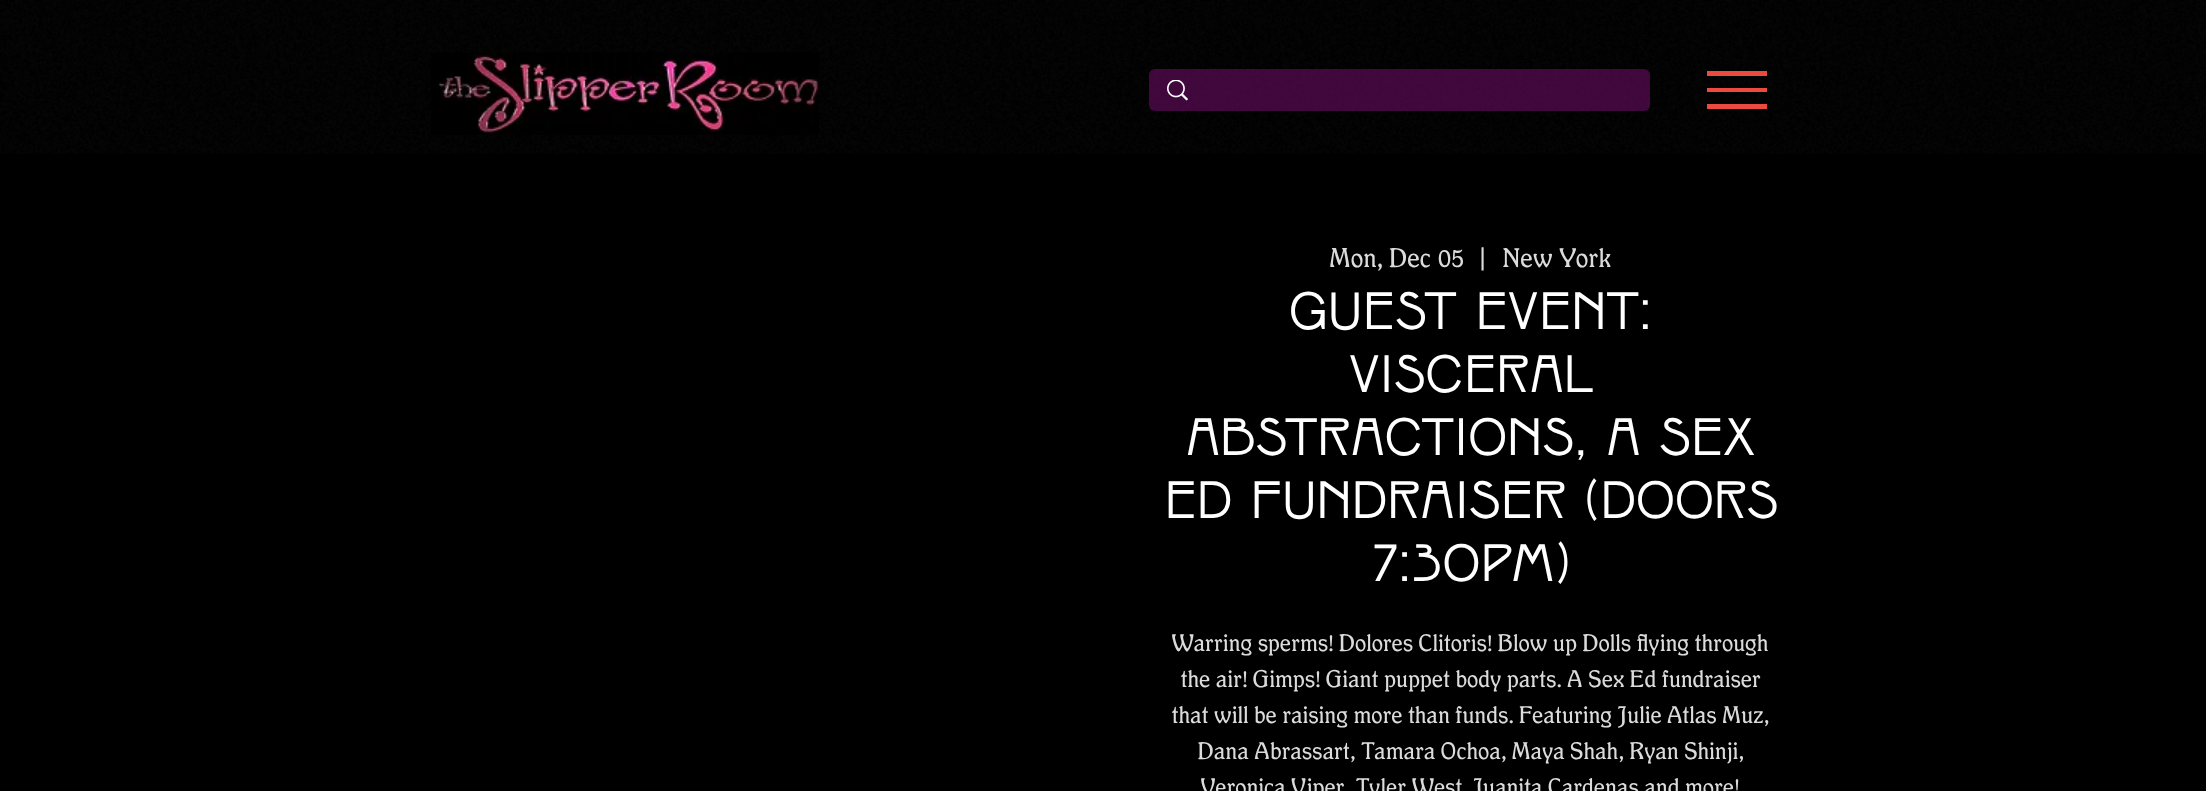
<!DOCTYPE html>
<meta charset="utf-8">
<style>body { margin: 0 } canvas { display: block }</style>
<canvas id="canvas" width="2206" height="791"></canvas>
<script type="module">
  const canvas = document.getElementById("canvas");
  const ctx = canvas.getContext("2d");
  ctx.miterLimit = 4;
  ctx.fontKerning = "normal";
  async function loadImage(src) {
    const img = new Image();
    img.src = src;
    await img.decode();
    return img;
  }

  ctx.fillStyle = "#000000";
  ctx.fillRect(0, 0, 2206, 791);
  ctx.drawImage(await loadImage("img1.png"), 0, 0, 2206, 154);
  ctx.drawImage(await loadImage("img2.png"), 431, 52, 388, 83);
  ctx.fillStyle = "rgba(126, 14, 117, 0.51)";
  ctx.beginPath();
  ctx.roundRect(1149, 69, 501, 42, 6);
  ctx.fill();
  ctx.drawImage(await loadImage("img3.png"), 1167, 80, 21, 21);
  ctx.fillStyle = "#eb4a3e";
  ctx.fillRect(1707, 104, 60, 5);
  ctx.fillRect(1707, 71, 60, 5);
  ctx.fillRect(1707, 88, 60, 4);
  ctx.font = "27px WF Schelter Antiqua";
  ctx.fillStyle = "#dbdbdb";
  ctx.fillText("Mon, Dec 05", 1330, 267);
  ctx.fillText("|", 1477, 267);
  ctx.fillText("New York", 1503, 267);
  ctx.font = "52.5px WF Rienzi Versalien";
  ctx.fillStyle = "#ffffff";
  ctx.fillText("Guest Event:", 1289, 329);
  ctx.fillText("Visceral", 1349, 392);
  ctx.fillText("Abstractions, A Sex", 1186, 455);
  ctx.fillText("Ed Fundraiser (Doors", 1164, 518);
  ctx.fillText("7:30pm)", 1372, 581);
  ctx.font = "24px WF Schelter Antiqua";
  ctx.fillStyle = "#dbdbdb";
  ctx.fillText("Warring sperms! Dolores Clitoris! Blow up Dolls flying through", 1172, 651);
  ctx.fillText("the air! Gimps! Giant puppet body parts. A Sex Ed fundraiser", 1181, 687);
  ctx.fillText("that will be raising more than funds. Featuring Julie Atlas Muz,", 1172, 723);
  ctx.fillText("Dana Abrassart, Tamara Ochoa, Maya Shah, Ryan Shinji,", 1198, 759);
  ctx.fillText("Veronica Viper, Tyler West, Juanita Cardenas and more!", 1201, 795);
</script>
